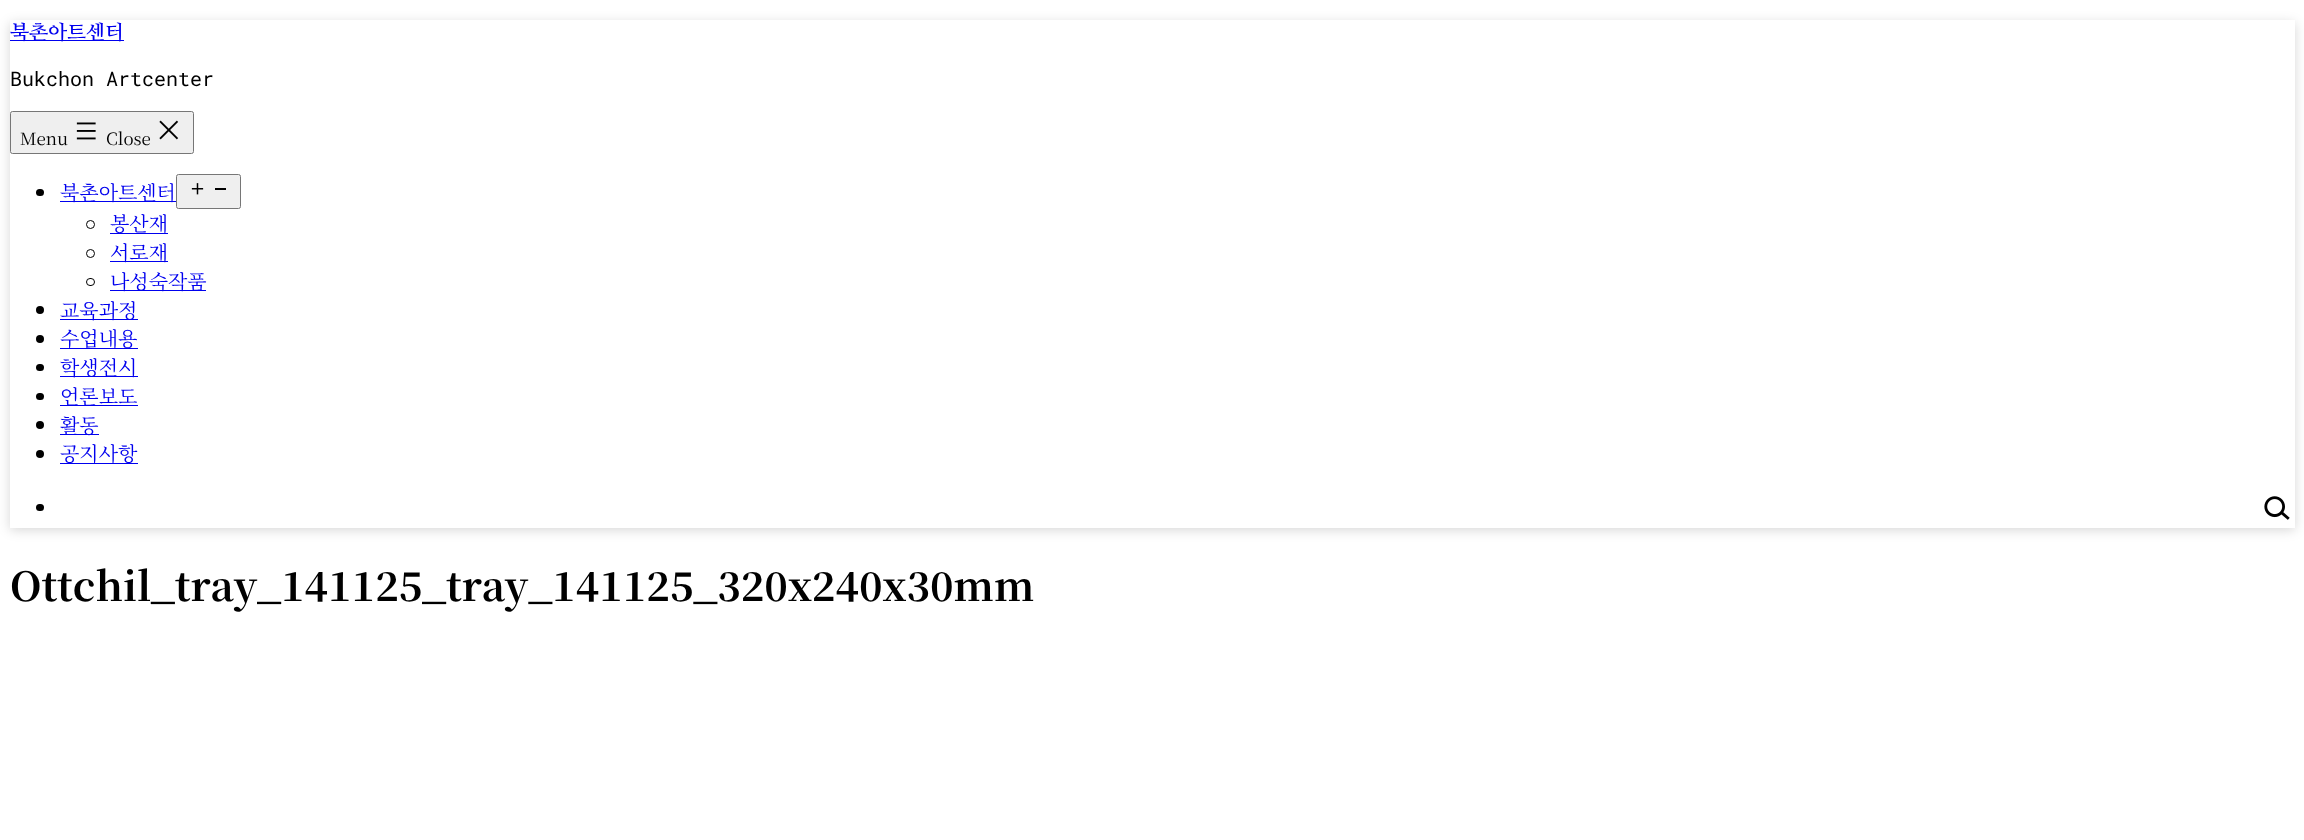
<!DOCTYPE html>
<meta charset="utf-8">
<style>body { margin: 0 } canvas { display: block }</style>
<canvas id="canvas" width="2304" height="840"></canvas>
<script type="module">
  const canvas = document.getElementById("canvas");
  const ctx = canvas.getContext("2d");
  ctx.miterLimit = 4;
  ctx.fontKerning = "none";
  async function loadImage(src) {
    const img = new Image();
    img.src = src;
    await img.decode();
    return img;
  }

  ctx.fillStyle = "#ffffff";
  ctx.fillRect(0, 0, 2304, 840);
  ctx.save();
  ctx.beginPath();
  ctx.moveTo(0, 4);
  ctx.lineTo(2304, 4);
  ctx.lineTo(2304, 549);
  ctx.lineTo(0, 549);
  ctx.closePath();
  ctx.moveTo(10, 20);
  ctx.lineTo(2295, 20);
  ctx.lineTo(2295, 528);
  ctx.lineTo(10, 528);
  ctx.closePath();
  ctx.clip("evenodd");
  ctx.fillStyle = "rgba(0, 0, 0, 0.16)";
  ctx.filter = "blur(6px)";
  ctx.beginPath();
  ctx.rect(10, 23, 2285, 507);
  ctx.fill();
  ctx.filter = "none";
  ctx.restore();
  ctx.fillStyle = "#0000ee";
  ctx.fillRect(10, 40, 114, 1);
  ctx.font = "bold 20px NanumMyeongjo";
  ctx.fillText("북촌아트센터", 10, 39);
  ctx.font = "20px Roboto Mono";
  ctx.fillStyle = "#000000";
  ctx.fillText("Bukchon Artcenter", 10, 86);
  ctx.fillStyle = "#efefef";
  ctx.beginPath();
  ctx.roundRect(10.5, 111.5, 183, 42, 2);
  ctx.fill();
  ctx.strokeStyle = "#767676";
  ctx.stroke();
  ctx.font = "17px Noto Serif KR";
  ctx.fillStyle = "#000000";
  ctx.fillText("Menu", 20, 145);
  ctx.drawImage(await loadImage("img1.png"), 76, 122, 20, 18);
  ctx.fillText("Close", 106, 145);
  ctx.drawImage(await loadImage("img2.png"), 159, 120, 20, 20);
  ctx.beginPath();
  ctx.roundRect(36, 189, 8, 7, 3.5);
  ctx.fill();
  ctx.fillStyle = "#0000ee";
  ctx.fillRect(60, 201, 116, 1);
  ctx.font = "20px Noto Serif KR";
  ctx.fillText("북촌아트센터", 60, 200);
  ctx.fillStyle = "#efefef";
  ctx.beginPath();
  ctx.roundRect(176.5, 174.5, 64, 34, 2);
  ctx.fill();
  ctx.stroke();
  ctx.drawImage(await loadImage("img3.png"), 191, 183, 13, 12);
  ctx.fillStyle = "#000000";
  ctx.fillRect(215, 188, 11, 2);
  ctx.beginPath();
  ctx.arc(90.5, 224.5, 4, 0, Math.PI * 2);
  ctx.strokeStyle = "#000000";
  ctx.stroke();
  ctx.fillStyle = "#0000ee";
  ctx.fillRect(110, 233, 58, 1);
  ctx.fillText("봉산재", 110, 231);
  ctx.beginPath();
  ctx.arc(90.5, 253.5, 4, 0, Math.PI * 2);
  ctx.stroke();
  ctx.fillRect(110, 261, 58, 1);
  ctx.fillText("서로재", 110, 260);
  ctx.beginPath();
  ctx.roundRect(86.5, 278.5, 8, 7, 3.5);
  ctx.stroke();
  ctx.fillRect(110, 290, 96, 1);
  ctx.fillText("나성숙작품", 110, 289);
  ctx.fillStyle = "#000000";
  ctx.beginPath();
  ctx.arc(40, 310, 4, 0, Math.PI * 2);
  ctx.fill();
  ctx.fillStyle = "#0000ee";
  ctx.fillRect(60, 319, 78, 1);
  ctx.fillText("교육과정", 60, 318);
  ctx.fillStyle = "#000000";
  ctx.beginPath();
  ctx.arc(40, 339, 4, 0, Math.PI * 2);
  ctx.fill();
  ctx.fillStyle = "#0000ee";
  ctx.fillRect(60, 348, 78, 1);
  ctx.fillText("수업내용", 60, 346);
  ctx.fillStyle = "#000000";
  ctx.beginPath();
  ctx.roundRect(36, 364, 8, 7, 3.5);
  ctx.fill();
  ctx.fillStyle = "#0000ee";
  ctx.fillRect(60, 376, 78, 1);
  ctx.fillText("학생전시", 60, 375);
  ctx.fillStyle = "#000000";
  ctx.beginPath();
  ctx.roundRect(36, 393, 8, 7, 3.5);
  ctx.fill();
  ctx.fillStyle = "#0000ee";
  ctx.fillRect(60, 405, 78, 1);
  ctx.fillText("언론보도", 60, 404);
  ctx.fillStyle = "#000000";
  ctx.beginPath();
  ctx.arc(40, 425, 4, 0, Math.PI * 2);
  ctx.fill();
  ctx.fillStyle = "#0000ee";
  ctx.fillRect(60, 434, 39, 1);
  ctx.fillText("활동", 60, 433);
  ctx.fillStyle = "#000000";
  ctx.beginPath();
  ctx.arc(40, 454, 4, 0, Math.PI * 2);
  ctx.fill();
  ctx.fillStyle = "#0000ee";
  ctx.fillRect(60, 463, 78, 1);
  ctx.fillText("공지사항", 60, 461);
  ctx.fillStyle = "#000000";
  ctx.beginPath();
  ctx.roundRect(36, 504, 8, 7, 3.5);
  ctx.fill();
  ctx.drawImage(await loadImage("img4.png"), 2264, 496, 26, 24);
  ctx.font = "bold 40px Noto Serif KR";
  ctx.fillText("Ottchil_tray_141125_tray_141125_320x240x30mm", 10, 601);
</script>
